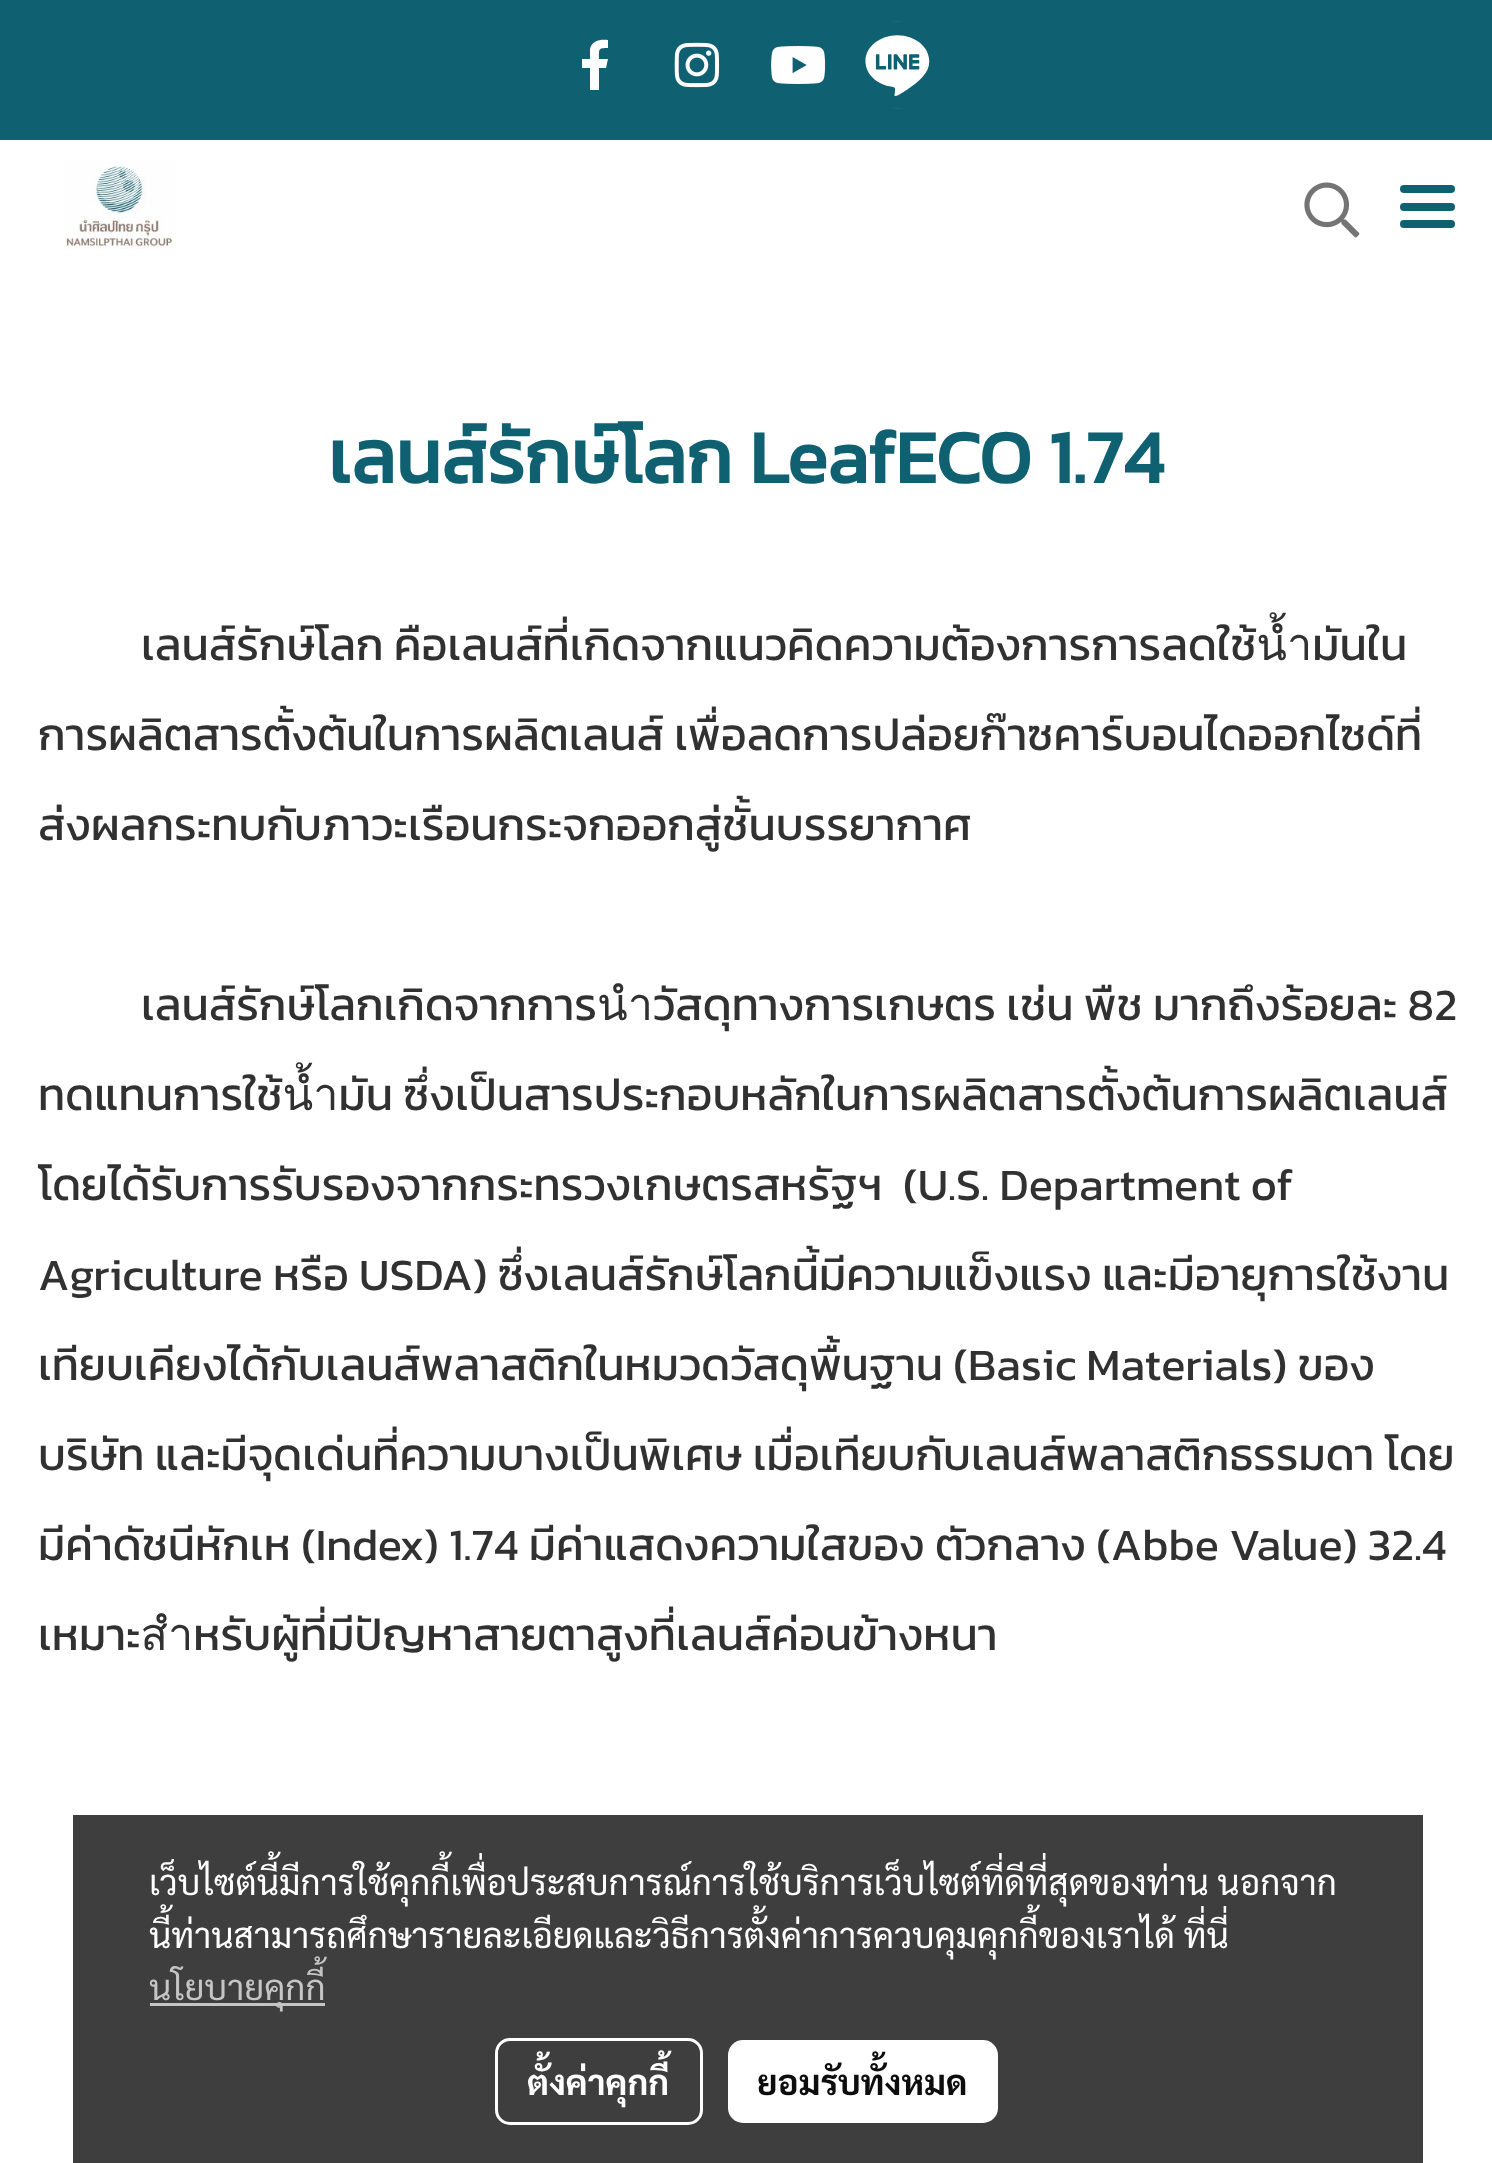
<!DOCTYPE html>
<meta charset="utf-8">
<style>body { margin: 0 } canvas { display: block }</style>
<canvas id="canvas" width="1492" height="2163"></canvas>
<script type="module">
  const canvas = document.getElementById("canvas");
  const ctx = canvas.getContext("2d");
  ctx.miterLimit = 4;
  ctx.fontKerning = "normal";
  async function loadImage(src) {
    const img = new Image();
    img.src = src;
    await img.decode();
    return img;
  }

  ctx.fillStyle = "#ffffff";
  ctx.fillRect(0, 0, 1492, 2163);
  ctx.fillStyle = "#0f6071";
  ctx.fillRect(0, 0, 1492, 140);
  ctx.fillStyle = "#ffffff";
  ctx.beginPath();
  ctx.moveTo(590, 90);
  ctx.lineTo(590, 68);
  ctx.lineTo(582, 68);
  ctx.lineTo(582, 59);
  ctx.lineTo(590, 59);
  ctx.lineTo(590, 49);
  ctx.bezierCurveTo(592, 40, 601, 39, 608, 40);
  ctx.lineTo(608, 48);
  ctx.bezierCurveTo(598, 48, 599, 49, 599, 59);
  ctx.lineTo(608, 59);
  ctx.lineTo(606, 68);
  ctx.lineTo(599, 68);
  ctx.lineTo(599, 90);
  ctx.fill();
  ctx.drawImage(await loadImage("img1.png"), 674, 42, 46, 46);
  ctx.drawImage(await loadImage("img2.png"), 771, 46, 55, 38);
  ctx.drawImage(await loadImage("img3.png"), 865, 21, 65, 88);
  ctx.drawImage(await loadImage("img4.png"), 65, 161, 111, 88);
  ctx.drawImage(await loadImage("img5.png"), 1304, 182, 56, 56);
  ctx.fillStyle = "#0f6071";
  ctx.beginPath();
  ctx.roundRect(1400, 203, 55, 8, 4);
  ctx.fill();
  ctx.beginPath();
  ctx.roundRect(1400, 185, 55, 8, 4);
  ctx.fill();
  ctx.beginPath();
  ctx.roundRect(1400, 220, 55, 8, 4);
  ctx.fill();
  ctx.font = "bold 75px Kanit";
  ctx.fillText("เลนส์รักษ์โลก LeafECO 1.74", 328, 483);
  ctx.font = "45px Kanit";
  ctx.fillStyle = "#313131";
  ctx.fillText("เลนส์รักษ์โลก คือเลนส์ที่เกิดจากแนวคิดความต้องการการลดใช้น้ำมันใน", 141, 660);
  ctx.fillText("การผลิตสารตั้งต้นในการผลิตเลนส์ เพื่อลดการปล่อยก๊าซคาร์บอนไดออกไซด์ที่", 38, 750);
  ctx.fillText("ส่งผลกระทบกับภาวะเรือนกระจกออกสู่ชั้นบรรยากาศ", 38, 840);
  ctx.fillText("เลนส์รักษ์โลกเกิดจากการนำวัสดุทางการเกษตร เช่น พืช มากถึงร้อยละ 82", 141, 1020);
  ctx.fillText("ทดแทนการใช้น้ำมัน ซึ่งเป็นสารประกอบหลักในการผลิตสารตั้งต้นการผลิตเลนส์", 38, 1110);
  ctx.fillText("โดยได้รับการรับรองจากกระทรวงเกษตรสหรัฐฯ  (U.S. Department of", 38, 1200);
  ctx.fillText("Agriculture หรือ USDA) ซึ่งเลนส์รักษ์โลกนี้มีความแข็งแรง และมีอายุการใช้งาน", 38, 1290);
  ctx.fillText("เทียบเคียงได้กับเลนส์พลาสติกในหมวดวัสดุพื้นฐาน (Basic Materials) ของ", 38, 1380);
  ctx.fillText("บริษัท และมีจุดเด่นที่ความบางเป็นพิเศษ เมื่อเทียบกับเลนส์พลาสติกธรรมดา โดย", 38, 1470);
  ctx.fillText("มีค่าดัชนีหักเห (Index) 1.74 มีค่าแสดงความใสของ ตัวกลาง (Abbe Value) 32.4", 38, 1560);
  ctx.fillText("เหมาะสำหรับผู้ที่มีปัญหาสายตาสูงที่เลนส์ค่อนข้างหนา", 38, 1650);
  ctx.fillStyle = "#3e3e3e";
  ctx.fillRect(73, 1815, 1350, 348);
  ctx.font = "35px Sarabun";
  ctx.fillStyle = "#ffffff";
  ctx.fillText("เว็บไซต์นี้มีการใช้คุกกี้เพื่อประสบการณ์การใช้บริการเว็บไซต์ที่ดีที่สุดของท่าน นอกจาก", 149, 1895);
  ctx.fillText("นี้ท่านสามารถศึกษารายละเอียดและวิธีการตั้งค่าการควบคุมคุกกี้ของเราได้ ที่นี่", 149, 1948);
  ctx.fillStyle = "#c5c5c5";
  ctx.fillRect(150, 2003, 175, 3);
  ctx.fillText("นโยบายคุกกี้", 149, 2000);
  ctx.beginPath();
  ctx.roundRect(496.5, 2039.5, 205, 84, 13.5);
  ctx.strokeStyle = "#ffffff";
  ctx.lineWidth = 3;
  ctx.stroke();
  ctx.font = "bold 35px Sarabun";
  ctx.fillStyle = "#ffffff";
  ctx.fillText("ตั้งค่าคุกกี้", 527, 2095);
  ctx.beginPath();
  ctx.roundRect(728, 2040, 270, 83, 15);
  ctx.fill();
  ctx.fillStyle = "#0d0d0d";
  ctx.fillText("ยอมรับทั้งหมด", 757, 2095);
</script>
